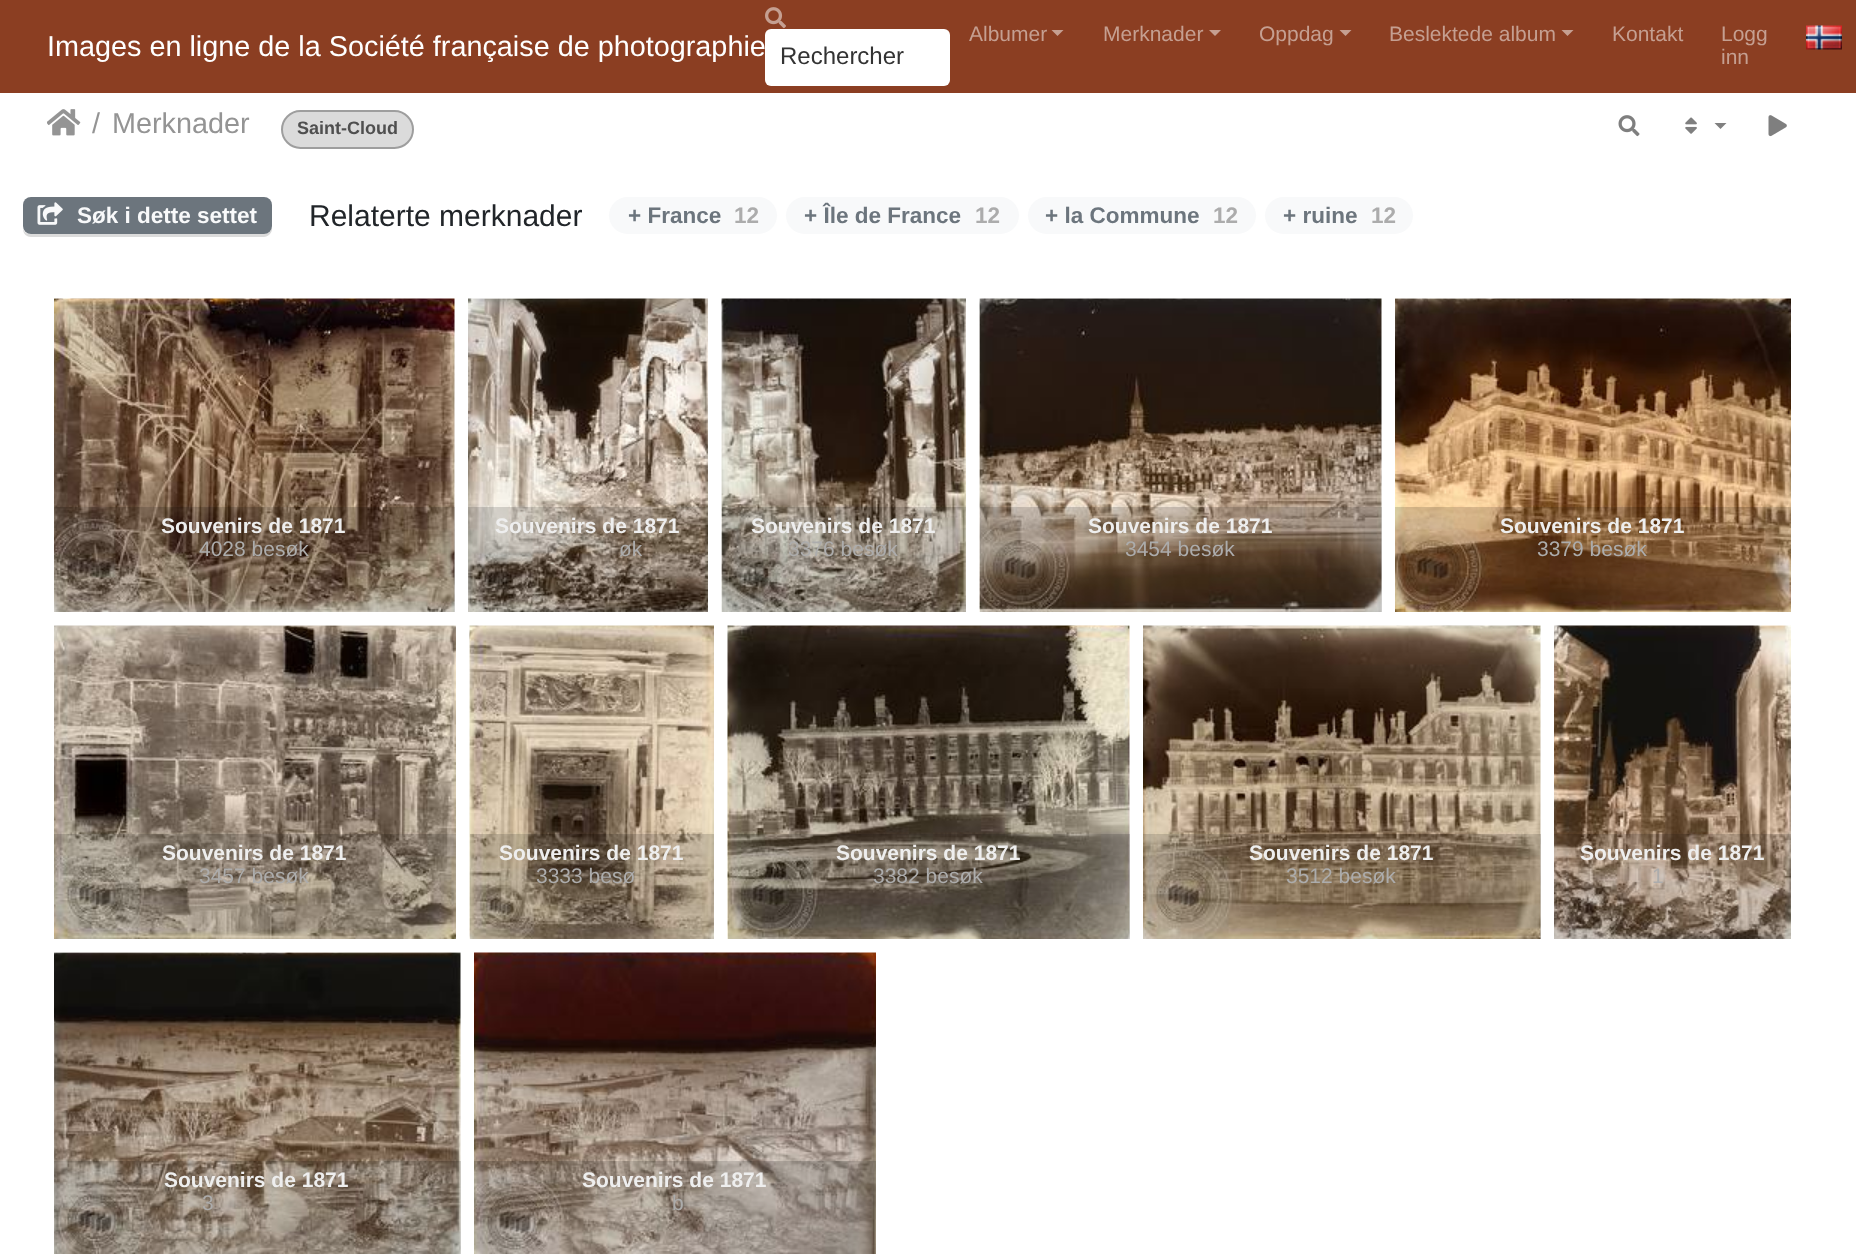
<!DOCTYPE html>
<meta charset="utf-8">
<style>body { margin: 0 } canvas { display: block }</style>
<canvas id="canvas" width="1856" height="1254"></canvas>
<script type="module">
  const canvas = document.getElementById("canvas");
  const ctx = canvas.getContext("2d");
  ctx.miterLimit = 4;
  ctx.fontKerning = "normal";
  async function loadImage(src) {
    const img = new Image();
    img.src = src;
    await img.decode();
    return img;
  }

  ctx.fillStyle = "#ffffff";
  ctx.fillRect(0, 0, 1856, 1254);
  ctx.fillStyle = "#8b3e22";
  ctx.fillRect(0, 0, 1856, 93);
  ctx.font = "28.8px Liberation Sans";
  ctx.fillStyle = "#ffffff";
  ctx.fillText("Images en ligne de la Société française de photographie", 47, 56);
  ctx.drawImage(await loadImage("img1.png"), 765, 7, 21, 22);
  ctx.beginPath();
  ctx.roundRect(765, 29, 185, 57, 6);
  ctx.fill();
  ctx.font = "24px Liberation Sans";
  ctx.fillStyle = "#333333";
  ctx.fillText("Rechercher", 780, 64);
  ctx.font = "21px Liberation Sans";
  ctx.fillStyle = "#c59f91";
  ctx.fillText("Albumer", 969, 41);
  ctx.beginPath();
  ctx.moveTo(1051.5, 30);
  ctx.lineTo(1063.5, 30);
  ctx.lineTo(1057.5, 36);
  ctx.closePath();
  ctx.fill();
  ctx.fillText("Merknader", 1103, 41);
  ctx.beginPath();
  ctx.moveTo(1209, 30);
  ctx.lineTo(1221, 30);
  ctx.lineTo(1215, 36);
  ctx.closePath();
  ctx.fill();
  ctx.fillText("Oppdag", 1259, 41);
  ctx.beginPath();
  ctx.moveTo(1339.5, 30);
  ctx.lineTo(1351.5, 30);
  ctx.lineTo(1345.5, 36);
  ctx.closePath();
  ctx.fill();
  ctx.fillText("Beslektede album", 1389, 41);
  ctx.beginPath();
  ctx.moveTo(1561.5, 30);
  ctx.lineTo(1573.5, 30);
  ctx.lineTo(1567.5, 36);
  ctx.closePath();
  ctx.fill();
  ctx.fillText("Kontakt", 1612, 41);
  ctx.fillText("Logg", 1721, 41);
  ctx.fillText("inn", 1721, 64);
  ctx.drawImage(await loadImage("img2.png"), 1806, 25, 36, 25);
  ctx.drawImage(await loadImage("img3.png"), 47, 109, 34, 27);
  ctx.font = "28.8px Liberation Sans";
  ctx.fillStyle = "#949494";
  ctx.fillText("/", 92, 133);
  ctx.fillText("Merknader", 112, 133);
  ctx.fillStyle = "#dbdbdb";
  ctx.beginPath();
  ctx.roundRect(282, 111, 131, 37, 18.5);
  ctx.fill();
  ctx.strokeStyle = "#9e9e9e";
  ctx.lineWidth = 2;
  ctx.stroke();
  ctx.font = "bold 18px Liberation Sans";
  ctx.fillStyle = "#4f4f4f";
  ctx.fillText("Saint-Cloud", 297, 134);
  ctx.drawImage(await loadImage("img4.png"), 1618, 115, 22, 22);
  ctx.drawImage(await loadImage("img5.png"), 1685, 117, 12, 17);
  ctx.fillStyle = "#808080";
  ctx.beginPath();
  ctx.moveTo(1714.5, 123);
  ctx.lineTo(1726.5, 123);
  ctx.lineTo(1720.5, 129);
  ctx.closePath();
  ctx.fill();
  ctx.drawImage(await loadImage("img6.png"), 1768, 115, 19, 22);
  ctx.fillStyle = "#dbdbdb";
  ctx.beginPath();
  ctx.moveTo(23, 229);
  ctx.bezierCurveTo(23, 234, 27, 237, 31, 237);
  ctx.lineTo(264, 237);
  ctx.bezierCurveTo(268, 237, 272, 233, 272, 229);
  ctx.lineTo(272, 208);
  ctx.lineTo(272, 205);
  ctx.lineTo(272, 226);
  ctx.bezierCurveTo(272, 231, 268, 234, 264, 234);
  ctx.lineTo(30, 234);
  ctx.bezierCurveTo(27, 234, 24, 232, 23, 229);
  ctx.closePath();
  ctx.fill();
  ctx.fillStyle = "#6c757d";
  ctx.beginPath();
  ctx.roundRect(23, 197, 249, 37, 8);
  ctx.fill();
  ctx.drawImage(await loadImage("img7.png"), 37, 202, 26, 23);
  ctx.font = "bold 22.5px Liberation Sans";
  ctx.fillStyle = "#f8f9fa";
  ctx.fillText("Søk i dette settet", 77, 223);
  ctx.font = "30px Liberation Sans";
  ctx.fillStyle = "#212529";
  ctx.fillText("Relaterte merknader", 309, 226);
  ctx.fillStyle = "#f8f9fa";
  ctx.beginPath();
  ctx.roundRect(609, 197, 168, 37, 18.5);
  ctx.fill();
  ctx.font = "bold 22.5px Liberation Sans";
  ctx.fillStyle = "#6c757d";
  ctx.fillText("+ France", 628, 223);
  ctx.fillStyle = "#acacac";
  ctx.fillText("12", 734, 223);
  ctx.fillStyle = "#f8f9fa";
  ctx.beginPath();
  ctx.roundRect(786, 197, 233, 37, 18.5);
  ctx.fill();
  ctx.fillStyle = "#6c757d";
  ctx.fillText("+ Île de France", 804, 223);
  ctx.fillStyle = "#acacac";
  ctx.fillText("12", 975, 223);
  ctx.fillStyle = "#f8f9fa";
  ctx.beginPath();
  ctx.roundRect(1028, 197, 228, 37, 18.5);
  ctx.fill();
  ctx.fillStyle = "#6c757d";
  ctx.fillText("+ la Commune", 1045, 223);
  ctx.fillStyle = "#acacac";
  ctx.fillText("12", 1213, 223);
  ctx.fillStyle = "#f8f9fa";
  ctx.beginPath();
  ctx.roundRect(1265, 197, 148, 37, 18.5);
  ctx.fill();
  ctx.fillStyle = "#6c757d";
  ctx.fillText("+ ruine", 1283, 223);
  ctx.fillStyle = "#acacac";
  ctx.fillText("12", 1371, 223);
  ctx.drawImage(await loadImage("img8.png"), 54, 298, 401, 314);
  ctx.fillStyle = "rgba(0, 0, 0, 0.15)";
  ctx.fillRect(54, 507, 401, 105);
  ctx.font = "bold 21px Liberation Sans";
  ctx.fillStyle = "#eeeeee";
  ctx.fillText("Souvenirs de 1871", 161, 533);
  ctx.font = "21px Liberation Sans";
  ctx.fillStyle = "#acacac";
  ctx.fillText("4028 besøk", 199, 556);
  ctx.drawImage(await loadImage("img9.png"), 468, 298, 240, 314);
  ctx.fillStyle = "rgba(0, 0, 0, 0.15)";
  ctx.fillRect(468, 507, 240, 105);
  ctx.font = "bold 21px Liberation Sans";
  ctx.fillStyle = "#eeeeee";
  ctx.fillText("Souvenirs de 1871", 495, 533);
  ctx.font = "21px Liberation Sans";
  ctx.fillStyle = "#acacac";
  ctx.fillText("øk", 619, 556);
  ctx.drawImage(await loadImage("img10.png"), 721, 298, 245, 314);
  ctx.fillStyle = "rgba(0, 0, 0, 0.15)";
  ctx.fillRect(722, 507, 244, 105);
  ctx.font = "bold 21px Liberation Sans";
  ctx.fillStyle = "#eeeeee";
  ctx.fillText("Souvenirs de 1871", 751, 533);
  ctx.font = "21px Liberation Sans";
  ctx.fillStyle = "#acacac";
  ctx.fillText("3376 besøk", 788, 556);
  ctx.drawImage(await loadImage("img11.png"), 979, 298, 403, 314);
  ctx.fillStyle = "rgba(0, 0, 0, 0.15)";
  ctx.fillRect(980, 507, 402, 105);
  ctx.font = "bold 21px Liberation Sans";
  ctx.fillStyle = "#eeeeee";
  ctx.fillText("Souvenirs de 1871", 1088, 533);
  ctx.font = "21px Liberation Sans";
  ctx.fillStyle = "#acacac";
  ctx.fillText("3454 besøk", 1125, 556);
  ctx.drawImage(await loadImage("img12.png"), 1395, 298, 396, 314);
  ctx.fillStyle = "rgba(0, 0, 0, 0.15)";
  ctx.fillRect(1395, 507, 396, 105);
  ctx.font = "bold 21px Liberation Sans";
  ctx.fillStyle = "#eeeeee";
  ctx.fillText("Souvenirs de 1871", 1500, 533);
  ctx.font = "21px Liberation Sans";
  ctx.fillStyle = "#acacac";
  ctx.fillText("3379 besøk", 1537, 556);
  ctx.drawImage(await loadImage("img13.png"), 54, 625, 402, 314);
  ctx.fillStyle = "rgba(0, 0, 0, 0.15)";
  ctx.fillRect(54, 834, 402, 105);
  ctx.font = "bold 21px Liberation Sans";
  ctx.fillStyle = "#eeeeee";
  ctx.fillText("Souvenirs de 1871", 162, 860);
  ctx.font = "21px Liberation Sans";
  ctx.fillStyle = "#acacac";
  ctx.fillText("3457 besøk", 199, 883);
  ctx.drawImage(await loadImage("img14.png"), 469, 625, 245, 314);
  ctx.fillStyle = "rgba(0, 0, 0, 0.15)";
  ctx.fillRect(470, 834, 244, 105);
  ctx.font = "bold 21px Liberation Sans";
  ctx.fillStyle = "#eeeeee";
  ctx.fillText("Souvenirs de 1871", 499, 860);
  ctx.font = "21px Liberation Sans";
  ctx.fillStyle = "#acacac";
  ctx.fillText("3333 besø", 536, 883);
  ctx.drawImage(await loadImage("img15.png"), 727, 625, 403, 314);
  ctx.fillStyle = "rgba(0, 0, 0, 0.15)";
  ctx.fillRect(728, 834, 402, 105);
  ctx.font = "bold 21px Liberation Sans";
  ctx.fillStyle = "#eeeeee";
  ctx.fillText("Souvenirs de 1871", 836, 860);
  ctx.font = "21px Liberation Sans";
  ctx.fillStyle = "#acacac";
  ctx.fillText("3382 besøk", 873, 883);
  ctx.drawImage(await loadImage("img16.png"), 1143, 625, 398, 314);
  ctx.fillStyle = "rgba(0, 0, 0, 0.15)";
  ctx.fillRect(1143, 834, 398, 105);
  ctx.font = "bold 21px Liberation Sans";
  ctx.fillStyle = "#eeeeee";
  ctx.fillText("Souvenirs de 1871", 1249, 860);
  ctx.font = "21px Liberation Sans";
  ctx.fillStyle = "#acacac";
  ctx.fillText("3512 besøk", 1286, 883);
  ctx.drawImage(await loadImage("img17.png"), 1554, 625, 237, 314);
  ctx.fillStyle = "rgba(0, 0, 0, 0.15)";
  ctx.fillRect(1554, 834, 237, 105);
  ctx.font = "bold 21px Liberation Sans";
  ctx.fillStyle = "#eeeeee";
  ctx.fillText("Souvenirs de 1871", 1580, 860);
  ctx.font = "21px Liberation Sans";
  ctx.fillStyle = "#acacac";
  ctx.fillText("1", 1652, 883);
  ctx.drawImage(await loadImage("img18.png"), 54, 952, 407, 302);
  ctx.fillStyle = "rgba(0, 0, 0, 0.15)";
  ctx.fillRect(54, 1161, 407, 93);
  ctx.font = "bold 21px Liberation Sans";
  ctx.fillStyle = "#eeeeee";
  ctx.fillText("Souvenirs de 1871", 164, 1187);
  ctx.font = "21px Liberation Sans";
  ctx.fillStyle = "#acacac";
  ctx.fillText("3", 202, 1210);
  ctx.drawImage(await loadImage("img19.png"), 474, 952, 402, 302);
  ctx.fillStyle = "rgba(0, 0, 0, 0.15)";
  ctx.fillRect(474, 1161, 402, 93);
  ctx.font = "bold 21px Liberation Sans";
  ctx.fillStyle = "#eeeeee";
  ctx.fillText("Souvenirs de 1871", 582, 1187);
  ctx.font = "21px Liberation Sans";
  ctx.fillStyle = "#acacac";
  ctx.fillText("b", 672, 1210);
</script>
